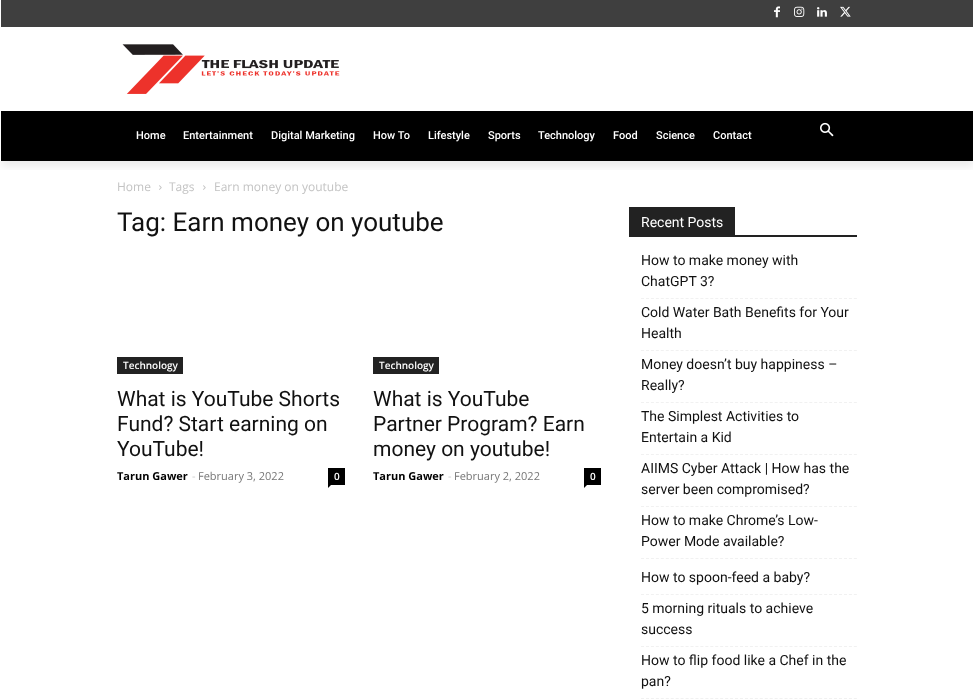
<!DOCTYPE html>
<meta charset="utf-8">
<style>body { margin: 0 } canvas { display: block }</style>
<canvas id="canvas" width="973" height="699"></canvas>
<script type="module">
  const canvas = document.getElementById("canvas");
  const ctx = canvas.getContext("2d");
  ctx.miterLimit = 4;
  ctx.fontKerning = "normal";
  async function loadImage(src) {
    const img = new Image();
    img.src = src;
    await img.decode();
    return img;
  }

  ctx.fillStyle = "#ffffff";
  ctx.fillRect(0, 0, 973, 699);
  ctx.fillStyle = "#3f3f3f";
  ctx.fillRect(1, 0, 972, 27);
  ctx.drawImage(await loadImage("img1.png"), 774, 6, 6, 12);
  ctx.drawImage(await loadImage("img2.png"), 794, 6, 11, 11);
  ctx.drawImage(await loadImage("img3.png"), 817, 7, 10, 10);
  ctx.drawImage(await loadImage("img4.png"), 840, 6, 11, 11);
  ctx.drawImage(await loadImage("img5.png"), 122, 44, 218, 50);
  ctx.fillStyle = "#000000";
  ctx.fillRect(1, 111, 972, 50);
  ctx.save();
  ctx.beginPath();
  ctx.rect(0, 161, 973, 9);
  ctx.clip();
  ctx.fillStyle = "rgba(0, 0, 0, 0.08)";
  ctx.filter = "blur(4px)";
  ctx.beginPath();
  ctx.rect(1, 117, 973, 50);
  ctx.fill();
  ctx.filter = "none";
  ctx.restore();
  ctx.font = "500 11px Roboto";
  ctx.fillStyle = "#ffffff";
  ctx.fillText("Home", 136, 139);
  ctx.fillText("Entertainment", 183, 139);
  ctx.fillText("Digital Marketing", 271, 139);
  ctx.fillText("How To", 373, 139);
  ctx.fillText("Lifestyle", 428, 139);
  ctx.fillText("Sports", 488, 139);
  ctx.fillText("Technology", 538, 139);
  ctx.fillText("Food", 613, 139);
  ctx.fillText("Science", 656, 139);
  ctx.fillText("Contact", 713, 139);
  ctx.drawImage(await loadImage("img6.png"), 820, 122, 14, 15);
  ctx.font = "12px Open Sans";
  ctx.fillStyle = "#c3c3c3";
  ctx.fillText("Home", 117, 191);
  ctx.drawImage(await loadImage("img7.png"), 159, 185, 3, 5);
  ctx.fillText("Tags", 169, 191);
  ctx.drawImage(await loadImage("img7.png"), 203, 185, 3, 5);
  ctx.fillText("Earn money on youtube", 214, 191);
  ctx.font = "26px Roboto";
  ctx.fillStyle = "#111111";
  ctx.fillText("Tag: Earn money on youtube", 117, 231);
  ctx.fillStyle = "#222222";
  ctx.fillRect(117, 357, 66, 17);
  ctx.font = "600 10px Open Sans";
  ctx.fillStyle = "#ffffff";
  ctx.fillText("Technology", 123, 369);
  ctx.font = "21px Roboto";
  ctx.fillStyle = "#111111";
  ctx.fillText("What is YouTube Shorts", 117, 406);
  ctx.fillText("Fund? Start earning on", 117, 431);
  ctx.fillText("YouTube!", 117, 456);
  ctx.font = "bold 11px Open Sans";
  ctx.fillStyle = "#000000";
  ctx.fillText("Tarun Gawer", 117, 480);
  ctx.font = "11px Open Sans";
  ctx.fillStyle = "#cccccc";
  ctx.fillText("-", 192, 480);
  ctx.fillStyle = "#767676";
  ctx.fillText("February 3, 2022", 198, 480);
  ctx.fillStyle = "#000000";
  ctx.fillRect(328, 468, 17, 17);
  ctx.font = "600 10px Open Sans";
  ctx.fillStyle = "#ffffff";
  ctx.fillText("0", 334, 480);
  ctx.fillStyle = "#000000";
  ctx.beginPath();
  ctx.moveTo(328, 485);
  ctx.lineTo(331, 485);
  ctx.lineTo(328, 488);
  ctx.closePath();
  ctx.fill();
  ctx.fillStyle = "#222222";
  ctx.fillRect(373, 357, 66, 17);
  ctx.fillStyle = "#ffffff";
  ctx.fillText("Technology", 379, 369);
  ctx.font = "21px Roboto";
  ctx.fillStyle = "#111111";
  ctx.fillText("What is YouTube", 373, 406);
  ctx.fillText("Partner Program? Earn", 373, 431);
  ctx.fillText("money on youtube!", 373, 456);
  ctx.font = "bold 11px Open Sans";
  ctx.fillStyle = "#000000";
  ctx.fillText("Tarun Gawer", 373, 480);
  ctx.font = "11px Open Sans";
  ctx.fillStyle = "#cccccc";
  ctx.fillText("-", 448, 480);
  ctx.fillStyle = "#767676";
  ctx.fillText("February 2, 2022", 454, 480);
  ctx.fillStyle = "#000000";
  ctx.fillRect(584, 468, 17, 17);
  ctx.font = "600 10px Open Sans";
  ctx.fillStyle = "#ffffff";
  ctx.fillText("0", 590, 480);
  ctx.fillStyle = "#000000";
  ctx.beginPath();
  ctx.moveTo(584, 485);
  ctx.lineTo(587, 485);
  ctx.lineTo(584, 488);
  ctx.closePath();
  ctx.fill();
  ctx.fillStyle = "#222222";
  ctx.fillRect(629, 235, 228, 2);
  ctx.fillRect(629, 207, 106, 28);
  ctx.font = "14px Roboto";
  ctx.fillStyle = "#ffffff";
  ctx.fillText("Recent Posts", 641, 227);
  ctx.beginPath();
  ctx.moveTo(641, 298.5);
  ctx.lineTo(857, 298.5);
  ctx.strokeStyle = "#f1f1f1";
  ctx.setLineDash([3, 1.95]);
  ctx.stroke();
  ctx.fillStyle = "#111111";
  ctx.fillText("How to make money with", 641, 265);
  ctx.fillText("ChatGPT 3?", 641, 286);
  ctx.beginPath();
  ctx.moveTo(641, 350.5);
  ctx.lineTo(857, 350.5);
  ctx.stroke();
  ctx.fillText("Cold Water Bath Benefits for Your", 641, 317);
  ctx.fillText("Health", 641, 338);
  ctx.beginPath();
  ctx.moveTo(641, 402.5);
  ctx.lineTo(857, 402.5);
  ctx.stroke();
  ctx.fillText("Money doesn’t buy happiness –", 641, 369);
  ctx.fillText("Really?", 641, 390);
  ctx.beginPath();
  ctx.moveTo(641, 454.5);
  ctx.lineTo(857, 454.5);
  ctx.stroke();
  ctx.fillText("The Simplest Activities to", 641, 421);
  ctx.fillText("Entertain a Kid", 641, 442);
  ctx.beginPath();
  ctx.moveTo(641, 506.5);
  ctx.lineTo(857, 506.5);
  ctx.stroke();
  ctx.fillText("AIIMS Cyber Attack | How has the", 641, 473);
  ctx.fillText("server been compromised?", 641, 494);
  ctx.beginPath();
  ctx.moveTo(641, 558.5);
  ctx.lineTo(857, 558.5);
  ctx.stroke();
  ctx.fillText("How to make Chrome’s Low-", 641, 525);
  ctx.fillText("Power Mode available?", 641, 546);
  ctx.beginPath();
  ctx.moveTo(641, 594.5);
  ctx.lineTo(857, 594.5);
  ctx.stroke();
  ctx.fillText("How to spoon-feed a baby?", 641, 582);
  ctx.beginPath();
  ctx.moveTo(641, 646.5);
  ctx.lineTo(857, 646.5);
  ctx.stroke();
  ctx.fillText("5 morning rituals to achieve", 641, 613);
  ctx.fillText("success", 641, 634);
  ctx.beginPath();
  ctx.moveTo(641, 698.5);
  ctx.lineTo(857, 698.5);
  ctx.stroke();
  ctx.fillText("How to flip food like a Chef in the", 641, 665);
  ctx.fillText("pan?", 641, 686);
</script>
